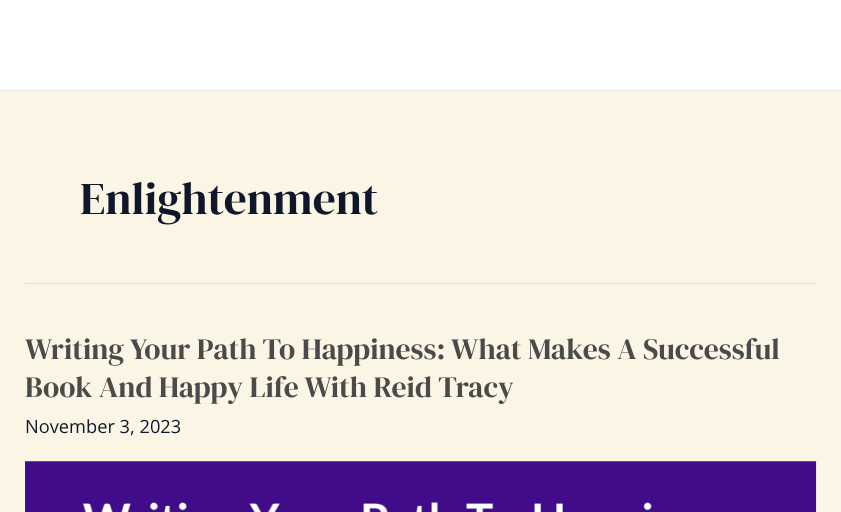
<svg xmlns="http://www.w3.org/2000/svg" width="841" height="512">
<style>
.a{font:45.5px DM Serif Display;fill:#0f172a}
.b{font:29.65px DM Serif Display;fill:#4a4a4a}
.c{font:18.25px Open Sans;fill:#0f172a}
</style>
<rect width="100%" height="100%" fill="#faf5e5"/>
<path fill="#fff" d="M0 0h841v90H0z"/>
<path fill="#eaeaea" d="M0 90h841v1H0z"/>
<path fill="#ddd" d="M25 283h791v1H25z"/>
<image href="1.png" x="25" y="461" width="792" height="51"/>
<text class="a" x="80" y="214">Enlightenment</text>
<text class="b" x="25" y="359">Writing Your Path To Happiness: What Makes A Successful</text>
<text class="b" x="25" y="397">Book And Happy Life With Reid Tracy</text>
<text class="c" x="25" y="433">November 3, 2023</text>
</svg>
